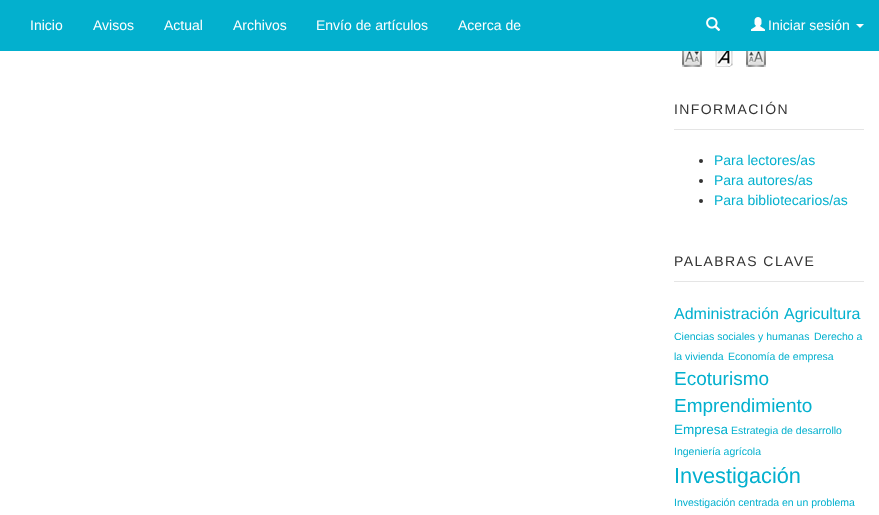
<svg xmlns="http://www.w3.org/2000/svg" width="879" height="515">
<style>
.a{font:14px Liberation Sans;fill:#fefefe}
.b{font:14px Liberation Sans;letter-spacing:1.4px;fill:#333}
.c{font:14px Liberation Sans;fill:#03b0ce}
.d{font:16px Liberation Sans;fill:#03b0ce}
.e{font:10.5px Liberation Sans;fill:#03b0ce}
.f{font:19px Liberation Sans;fill:#03b0ce}
.g{font:13.5px Liberation Sans;fill:#03b0ce}
.h{font:21.75px Liberation Sans;fill:#03b0ce}
</style>
<rect width="100%" height="100%" fill="#fff"/>
<path fill="#03b0ce" d="M0 0h879v51H0z"/>
<image href="1.png" x="706" y="17" width="15" height="14"/>
<image href="2.png" x="751" y="17" width="14" height="14"/>
<path fill="#fefefe" d="M856 24h8l-4 4z"/>
<image href="3.png" x="682" y="51" width="20" height="16"/>
<image href="4.png" x="715" y="51" width="18" height="16"/>
<image href="5.png" x="746" y="51" width="20" height="16"/>
<path fill="#e5e5e5" d="M674 129h190v1H674z"/>
<circle fill="#333" cx="701" cy="161" r="2"/>
<circle fill="#333" cx="701" cy="181" r="2"/>
<circle fill="#333" cx="701" cy="201" r="2"/>
<path fill="#e5e5e5" d="M674 281h190v1H674z"/>
<text class="a" x="30" y="30">Inicio</text>
<text class="a" x="93" y="30">Avisos</text>
<text class="a" x="164" y="30">Actual</text>
<text class="a" x="233" y="30">Archivos</text>
<text class="a" x="316" y="30">Envío de artículos</text>
<text class="a" x="458" y="30">Acerca de</text>
<text class="a" x="768" y="30">Iniciar sesión</text>
<text class="b" x="674" y="114">INFORMACIÓN</text>
<text class="c" x="714" y="165">Para lectores/as</text>
<text class="c" x="714" y="185">Para autores/as</text>
<text class="c" x="714" y="205">Para bibliotecarios/as</text>
<text class="b" x="674" y="266">PALABRAS CLAVE</text>
<text class="d" x="674" y="319">Administración</text>
<text class="d" x="784" y="319">Agricultura</text>
<text class="e" x="674" y="340">Ciencias sociales y humanas</text>
<text class="e" x="814" y="340">Derecho a</text>
<text class="e" x="674" y="360">la vivienda</text>
<text class="e" x="728" y="360">Economía de empresa</text>
<text class="f" x="674" y="385">Ecoturismo</text>
<text class="f" x="674" y="412">Emprendimiento</text>
<text class="g" x="674" y="434">Empresa</text>
<text class="e" x="731" y="434">Estrategia de desarrollo</text>
<text class="e" x="674" y="455">Ingeniería agrícola</text>
<text class="h" x="674" y="483">Investigación</text>
<text class="e" x="674" y="506">Investigación centrada en un problema</text>
</svg>
